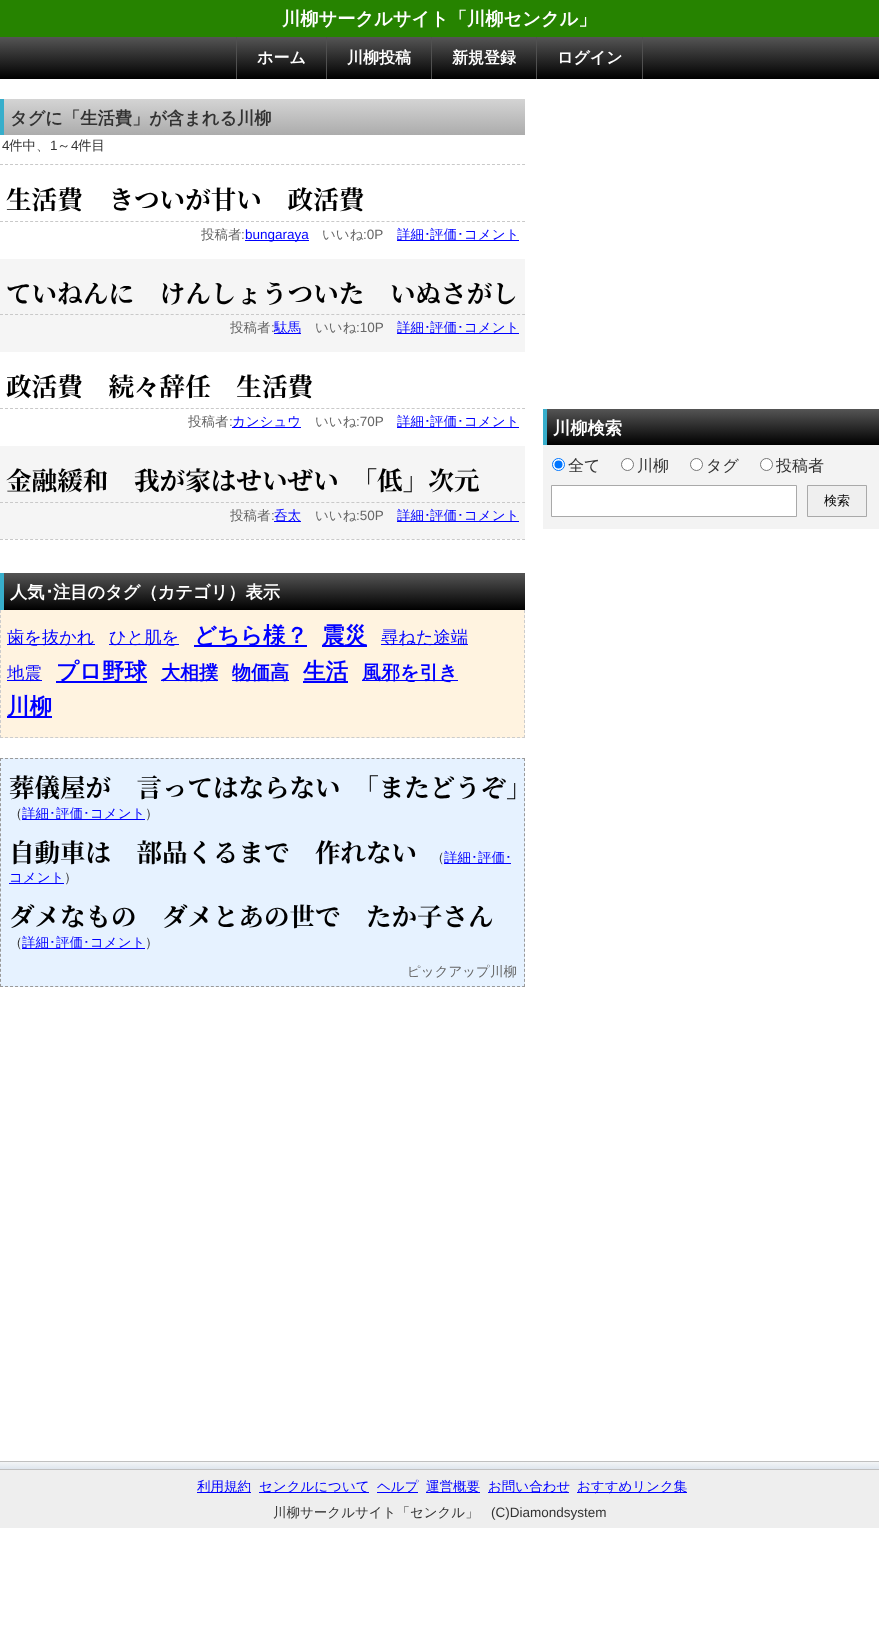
<svg xmlns="http://www.w3.org/2000/svg" width="879" height="1638">
<style>
.a{font:bold 18.25px WenQuanYi Zen Hei;fill:#fff}
.b{font:bold 16px WenQuanYi Zen Hei;fill:#fff}
.c{font:bold 17.25px WenQuanYi Zen Hei;fill:#333}
.d{font:13.5px Liberation Sans;fill:#333}
.e{font:500 13.5px WenQuanYi Zen Hei;fill:#333}
.f{font:bold 25.6px Noto Serif JP;fill:#000}
.g{font:500 13.5px WenQuanYi Zen Hei;fill:#666}
.h{font:13.5px Liberation Sans;fill:#666}
.i{font:13.5px Liberation Sans;fill:#00f}
.j{font:500 13.5px WenQuanYi Zen Hei;fill:#00f}
.k{font:13.5px IPAPGothic;fill:#00f}
.l{font:bold 17.25px WenQuanYi Zen Hei;fill:#fff}
.m{font:bold 17.25px IPAPGothic;fill:#fff}
.n{font:500 17.25px WenQuanYi Zen Hei;fill:#00f}
.o{font:bold 22.5px WenQuanYi Zen Hei;fill:#00f}
.p{font:bold 19px WenQuanYi Zen Hei;fill:#00f}
.q{font:bold 25.5px Noto Serif JP;fill:#000}
.r{font:500 16px WenQuanYi Zen Hei;fill:#333}
.s{font:500 13px WenQuanYi Zen Hei;fill:#000}
</style>
<defs>
<linearGradient id="g1" gradientUnits="userSpaceOnUse" x1="440" y1="37" x2="440" y2="79"><stop offset="0" stop-color="#555"/><stop offset="1" stop-color="#000"/><stop offset="1" stop-color="#535353"/></linearGradient>
<linearGradient id="g2" gradientUnits="userSpaceOnUse" x1="265" y1="135" x2="265" y2="99"><stop offset="0" stop-color="#acacac"/><stop offset="1" stop-color="#d4d4d4"/></linearGradient>
<linearGradient id="g3" gradientUnits="userSpaceOnUse" x1="265" y1="573" x2="265" y2="610"><stop offset="0" stop-color="#555"/><stop offset="1" stop-color="#000"/><stop offset="1" stop-color="#535353"/></linearGradient>
<linearGradient id="g4" gradientUnits="userSpaceOnUse" x1="713" y1="409" x2="713" y2="445"><stop offset="0" stop-color="#555"/><stop offset="1" stop-color="#000"/><stop offset="1" stop-color="#535353"/></linearGradient>
<linearGradient id="g5" gradientUnits="userSpaceOnUse" x1="440" y1="1462" x2="440" y2="1469"><stop offset="0" stop-color="#f3f5f6"/><stop offset="1" stop-color="#dfe6ee"/></linearGradient>
</defs>
<rect width="100%" height="100%" fill="#fff"/>
<path fill="#268300" d="M0 0h879v37H0z"/>
<path fill="url(#g1)" d="M0 37h879v42H0z"/>
<path fill="#505050" d="M326 37h1v42H326z"/>
<path fill="#505050" d="M236 37h1v42H236z"/>
<path fill="#505050" d="M431 37h1v42H431z"/>
<path fill="#505050" d="M536 37h1v42H536z"/>
<path fill="#505050" d="M642 37h1v42H642z"/>
<path fill="url(#g2)" d="M4 99h521v36H4z"/>
<path fill="#37aecb" d="M0 99h4v36H0z"/>
<path fill="none" stroke="#c9c9c9" stroke-dasharray="3 2.02" d="M0 164.5h525"/>
<path fill="none" stroke="#c9c9c9" stroke-dasharray="3 2.02" d="M0 221.5h525"/>
<path fill="#00f" d="M245 240h64v1H245z"/>
<path fill="#00f" d="M397 240h122v1H397z"/>
<path fill="#f5f5f5" d="M0 259h525v93H0z"/>
<path fill="none" stroke="#c9c9c9" stroke-dasharray="3 2.02" d="M0 314.5h525"/>
<path fill="#00f" d="M274 333h27v1H274z"/>
<path fill="#00f" d="M397 333h122v1H397z"/>
<path fill="none" stroke="#c9c9c9" stroke-dasharray="3 2.02" d="M0 408.5h525"/>
<path fill="#00f" d="M232 427h69v1H232z"/>
<path fill="#00f" d="M397 427h122v1H397z"/>
<path fill="#f5f5f5" d="M0 446h525v93H0z"/>
<path fill="none" stroke="#c9c9c9" stroke-dasharray="3 2.02" d="M0 502.5h525"/>
<path fill="#00f" d="M274 521h27v1H274z"/>
<path fill="#00f" d="M397 521h122v1H397z"/>
<path fill="none" stroke="#c9c9c9" stroke-dasharray="3 2.02" d="M0 539.5h525"/>
<path fill="url(#g3)" d="M4 573h521v37H4z"/>
<path fill="#37aecb" d="M0 573h4v37H0z"/>
<path fill="#fff3e0" d="M0 610h525v128H0z"/>
<path fill="none" stroke="#ccc" stroke-dasharray="3 2" d="M524.5 610v128"/>
<path fill="none" stroke="#ccc" stroke-dasharray="3 2.02" d="M0 737.5h525"/>
<path fill="none" stroke="#ccc" stroke-dasharray="3 2" d="M.5 610v128"/>
<path fill="#00f" d="M7 644h88v1H7z"/>
<path fill="#00f" d="M109 644h70v1H109z"/>
<path fill="#00f" d="M194 645h113v2H194z"/>
<path fill="#00f" d="M322 645h45v2H322z"/>
<path fill="#00f" d="M381 644h87v1H381z"/>
<path fill="#00f" d="M7 680h35v1H7z"/>
<path fill="#00f" d="M56 681h91v2H56z"/>
<path fill="#00f" d="M161 680h57v1H161z"/>
<path fill="#00f" d="M232 680h57v1H232z"/>
<path fill="#00f" d="M303 681h45v2H303z"/>
<path fill="#00f" d="M362 680h96v1H362z"/>
<path fill="#00f" d="M7 716h45v2H7z"/>
<path fill="#e6f2ff" d="M0 758h525v229H0z"/>
<path fill="none" stroke="#999" stroke-dasharray="3 2.02" d="M0 758.5h525"/>
<path fill="none" stroke="#999" stroke-dasharray="3 2.02" d="M524.5 758v229"/>
<path fill="none" stroke="#999" stroke-dasharray="3 2.02" d="M0 986.5h525"/>
<path fill="none" stroke="#999" stroke-dasharray="3 2.02" d="M.5 758v229"/>
<path fill="#00f" d="M22 819h123v1H22z"/>
<path fill="#00f" d="M444 863h67v1H444z"/>
<path fill="#00f" d="M9 883h55v1H9z"/>
<path fill="#00f" d="M22 948h123v1H22z"/>
<path fill="url(#g4)" d="M547 409h332v36H547z"/>
<path fill="#37aecb" d="M543 409h4v36H543z"/>
<path fill="#f3f3f3" d="M543 445h336v84H543z"/>
<circle fill="#fff" stroke="#0075ff" cx="558.5" cy="464.5" r="6"/>
<circle fill="#0075ff" cx="558.5" cy="464.5" r="4"/>
<circle fill="#fff" stroke="#767676" cx="627.5" cy="464.5" r="6"/>
<circle fill="#fff" stroke="#767676" cx="696.5" cy="464.5" r="6"/>
<circle fill="#fff" stroke="#767676" cx="766.5" cy="464.5" r="6"/>
<path fill="#fff" stroke="#a9a9a9" d="M551.5 485.5h245v31H551.5z"/>
<path fill="#efefef" stroke="#a9a9a9" d="M807.5 485.5h59v31H807.5z"/>
<path fill="url(#g5)" d="M0 1462h879v7H0z"/>
<path fill="#c0c0c0" d="M0 1461h879v1H0z"/>
<path fill="#eee" d="M0 1470h879v58H0z"/>
<path fill="#c0c0c0" d="M0 1469h879v1H0z"/>
<path fill="#00f" d="M197 1492h54v1H197z"/>
<path fill="#00f" d="M259 1492h110v1H259z"/>
<path fill="#00f" d="M377 1492h41v1H377z"/>
<path fill="#00f" d="M426 1492h54v1H426z"/>
<path fill="#00f" d="M488 1492h81v1H488z"/>
<path fill="#00f" d="M577 1492h110v1H577z"/>
<text class="a" x="282" y="25">川柳サークルサイト「川柳センクル」</text>
<text class="b" x="257" y="63">ホーム</text>
<text class="b" x="347" y="63">川柳投稿</text>
<text class="b" x="452" y="63">新規登録</text>
<text class="b" x="557" y="63">ログイン</text>
<text class="c" x="10" y="124">タグに「生活費」が含まれる川柳</text>
<text class="d" x="2" y="150">4</text>
<text class="e" x="9" y="150">件中、</text>
<text class="d" x="50" y="150">1</text>
<text class="e" x="57" y="150">～</text>
<text class="d" x="71" y="150">4</text>
<text class="e" x="78" y="150">件目</text>
<text class="f" x="6" y="209">生活費　きついが甘い　政活費</text>
<text class="g" x="201" y="239">投稿者</text>
<text class="h" x="241" y="239">:</text>
<text class="i" x="245" y="239">bungaraya</text>
<text class="g" x="322" y="239">いいね</text>
<text class="h" x="363" y="239">:0P</text>
<text class="j" x="397" y="239">詳細</text>
<text class="k" x="424" y="239">･</text>
<text class="j" x="430" y="239">評価</text>
<text class="k" x="457" y="239">･</text>
<text class="j" x="464" y="239">コメント</text>
<text class="f" x="6" y="303">ていねんに　けんしょうついた　いぬさがし</text>
<text class="g" x="230" y="332">投稿者</text>
<text class="h" x="271" y="332">:</text>
<text class="j" x="274" y="332">駄馬</text>
<text class="g" x="315" y="332">いいね</text>
<text class="h" x="356" y="332">:10P</text>
<text class="j" x="397" y="332">詳細</text>
<text class="k" x="424" y="332">･</text>
<text class="j" x="430" y="332">評価</text>
<text class="k" x="457" y="332">･</text>
<text class="j" x="464" y="332">コメント</text>
<text class="f" x="6" y="396">政活費　続々辞任　生活費</text>
<text class="g" x="188" y="426">投稿者</text>
<text class="h" x="229" y="426">:</text>
<text class="j" x="232" y="426">カンシュウ</text>
<text class="g" x="315" y="426">いいね</text>
<text class="h" x="356" y="426">:70P</text>
<text class="j" x="397" y="426">詳細</text>
<text class="k" x="424" y="426">･</text>
<text class="j" x="430" y="426">評価</text>
<text class="k" x="457" y="426">･</text>
<text class="j" x="464" y="426">コメント</text>
<text class="f" x="6" y="490">金融緩和　我が家はせいぜい　「低」次元</text>
<text class="g" x="230" y="520">投稿者</text>
<text class="h" x="271" y="520">:</text>
<text class="j" x="274" y="520">呑太</text>
<text class="g" x="315" y="520">いいね</text>
<text class="h" x="356" y="520">:50P</text>
<text class="j" x="397" y="520">詳細</text>
<text class="k" x="424" y="520">･</text>
<text class="j" x="430" y="520">評価</text>
<text class="k" x="457" y="520">･</text>
<text class="j" x="464" y="520">コメント</text>
<text class="l" x="10" y="598">人気</text>
<text class="m" x="45" y="598">･</text>
<text class="l" x="53" y="598">注目のタグ（カテゴリ）表示</text>
<text class="n" x="7" y="643">歯を抜かれ</text>
<text class="n" x="109" y="643">ひと肌を</text>
<text class="o" x="194" y="643">どちら様？</text>
<text class="o" x="322" y="643">震災</text>
<text class="n" x="381" y="643">尋ねた途端</text>
<text class="n" x="7" y="679">地震</text>
<text class="o" x="56" y="679">プロ野球</text>
<text class="p" x="161" y="679">大相撲</text>
<text class="p" x="232" y="679">物価高</text>
<text class="o" x="303" y="679">生活</text>
<text class="p" x="362" y="679">風邪を引き</text>
<text class="o" x="7" y="714">川柳</text>
<text class="q" x="9" y="797">葬儀屋が　言ってはならない　「またどうぞ」</text>
<text class="e" x="9" y="818">（</text>
<text class="j" x="22" y="818">詳細</text>
<text class="k" x="49" y="818">･</text>
<text class="j" x="56" y="818">評価</text>
<text class="k" x="83" y="818">･</text>
<text class="j" x="90" y="818">コメント</text>
<text class="e" x="145" y="818">）</text>
<text class="q" x="9" y="862">自動車は　部品くるまで　作れない</text>
<text class="e" x="431" y="862">（</text>
<text class="j" x="444" y="862">詳細</text>
<text class="k" x="471" y="862">･</text>
<text class="j" x="478" y="862">評価</text>
<text class="k" x="505" y="862">･</text>
<text class="j" x="9" y="882">コメント</text>
<text class="e" x="64" y="882">）</text>
<text class="q" x="9" y="926">ダメなもの　ダメとあの世で　たか子さん</text>
<text class="e" x="9" y="947">（</text>
<text class="j" x="22" y="947">詳細</text>
<text class="k" x="49" y="947">･</text>
<text class="j" x="56" y="947">評価</text>
<text class="k" x="83" y="947">･</text>
<text class="j" x="90" y="947">コメント</text>
<text class="e" x="145" y="947">）</text>
<text class="g" x="407" y="976">ピックアップ川柳</text>
<text class="l" x="553" y="434">川柳検索</text>
<text class="r" x="568" y="471">全て</text>
<text class="r" x="637" y="471">川柳</text>
<text class="r" x="706" y="471">タグ</text>
<text class="r" x="776" y="471">投稿者</text>
<text class="s" x="824" y="505">検索</text>
<text class="j" x="197" y="1491">利用規約</text>
<text class="j" x="259" y="1491">センクルについて</text>
<text class="j" x="377" y="1491">ヘルプ</text>
<text class="j" x="426" y="1491">運営概要</text>
<text class="j" x="488" y="1491">お問い合わせ</text>
<text class="j" x="577" y="1491">おすすめリンク集</text>
<text class="e" x="273" y="1517">川柳サークルサイト「センクル」</text>
<text class="d" x="491" y="1517">(C)Diamondsystem</text>
</svg>
